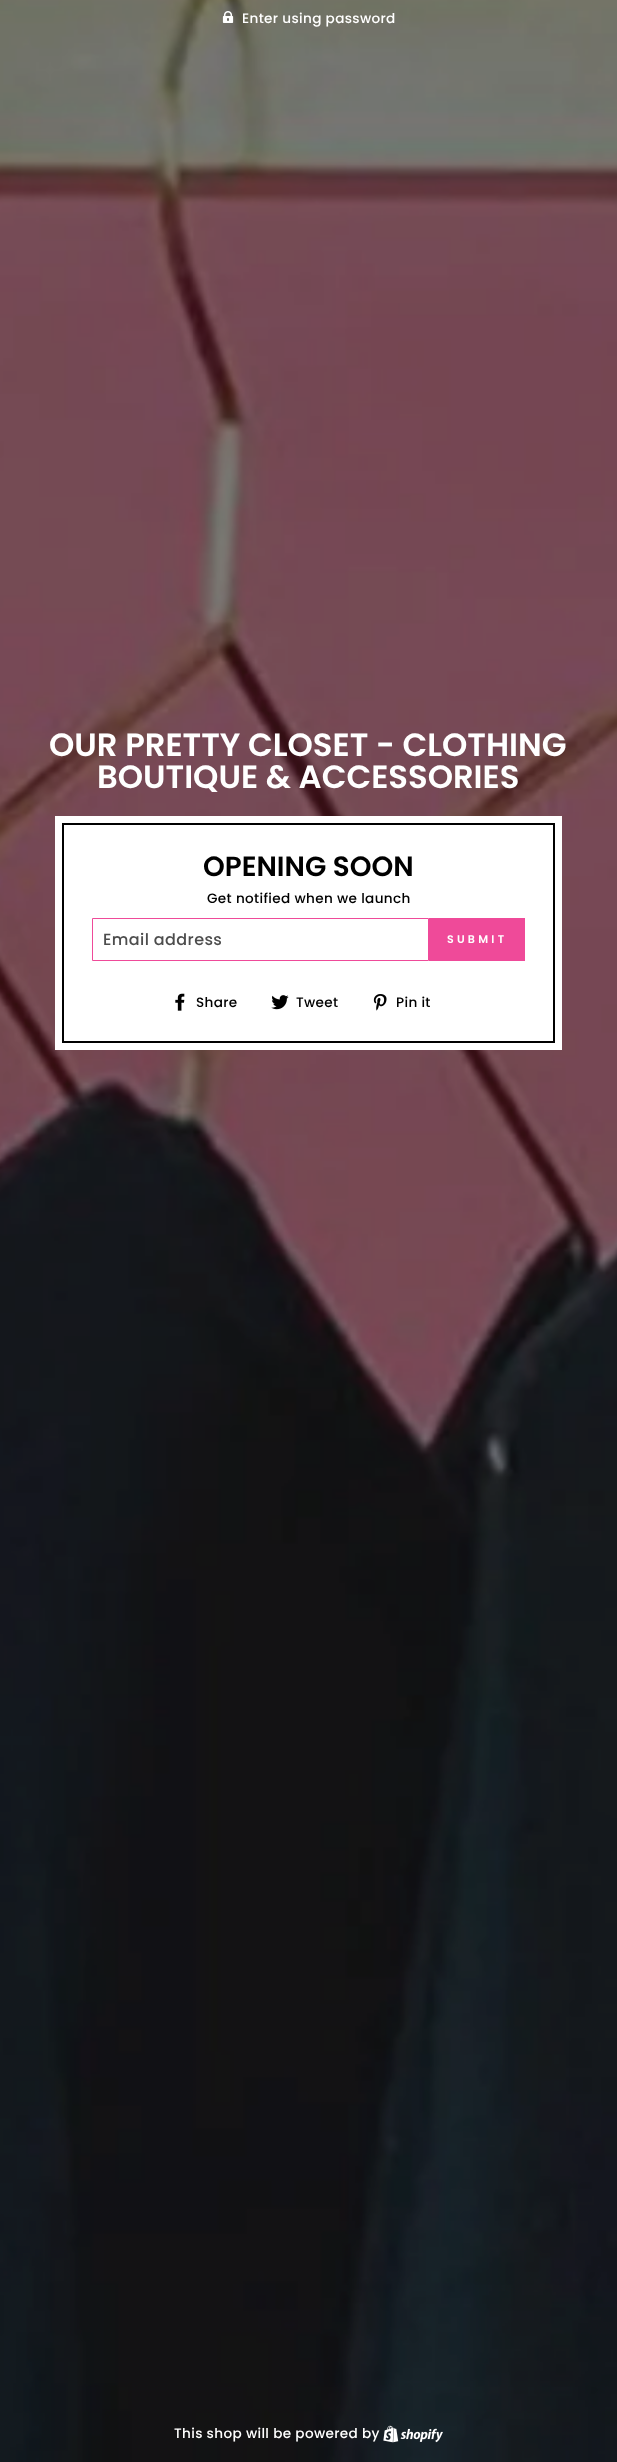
<svg xmlns="http://www.w3.org/2000/svg" width="617" height="2462">
<style>
.a{font:500 13.6px Poppins;letter-spacing:0.35px;fill:#fff}
.b{font:600 32.25px Poppins;fill:#fff}
.c{font:600 27.75px Poppins;fill:#000}
.d{font:500 13.6px Poppins;letter-spacing:0.35px;fill:#000}
.e{font:500 16px Poppins;letter-spacing:0.4px;fill:#4d4d4d}
.f{font:600 11px Poppins;letter-spacing:3.25px;fill:#fff}
</style>
<rect width="100%" height="100%" fill="#fff"/>
<image href="1.png" x="0" y="0" width="617" height="2462"/>
<image href="2.png" x="222" y="11" width="12" height="12"/>
<path fill="#fff" d="M55 816h507v234H55z"/>
<path fill="none" stroke="#000" stroke-width="2" d="M63 824h491v218H63z"/>
<path fill="none" stroke="#ef4a99" d="M92.5 918.5h336v42H92.5z"/>
<path fill="#ef4a99" d="M429 918h96v43H429z"/>
<image href="3.png" x="175" y="993" width="10" height="18"/>
<image href="4.png" x="271" y="995" width="18" height="15"/>
<image href="5.png" x="373" y="994" width="14" height="17"/>
<image href="6.png" x="383" y="2425" width="60" height="18"/>
<text class="a" x="242" y="23">Enter using password</text>
<text class="b" x="49" y="756">OUR PRETTY CLOSET - CLOTHING</text>
<text class="b" x="97" y="788">BOUTIQUE &amp; ACCESSORIES</text>
<text class="c" x="203" y="876">OPENING SOON</text>
<text class="d" x="207" y="903">Get notified when we launch</text>
<text class="e" x="103" y="945">Email address</text>
<text class="f" x="447" y="943">SUBMIT</text>
<text class="d" x="196" y="1007">Share</text>
<text class="d" x="296" y="1007">Tweet</text>
<text class="d" x="396" y="1007">Pin it</text>
<text class="a" x="174" y="2438">This shop will be powered by</text>
</svg>
